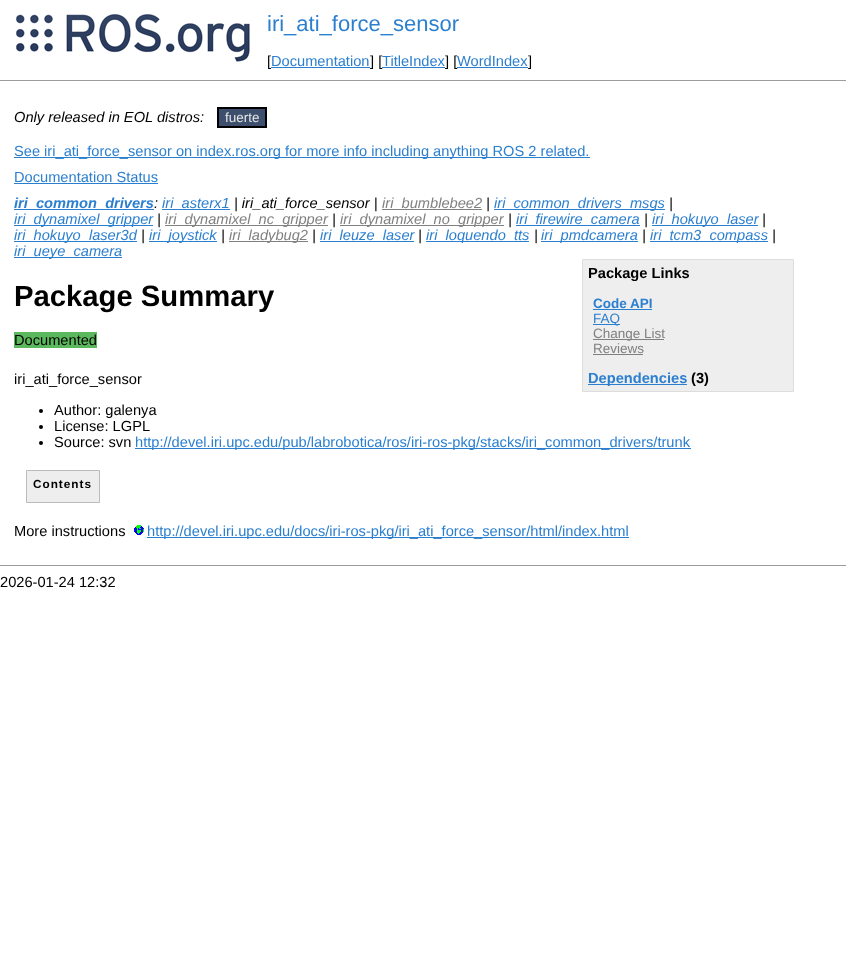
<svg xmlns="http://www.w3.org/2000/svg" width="846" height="967">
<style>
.a{font:22px Liberation Sans;fill:#2b7fcf}
.b{font:14.65px Liberation Sans;fill:#000}
.c{font:14.65px Liberation Sans;fill:#2b7fcf}
.d{font:italic 14.65px Liberation Sans;fill:#000}
.e{font:13.5px Liberation Sans;fill:#e6e6e6}
.f{font:italic bold 14.65px Liberation Sans;fill:#2b7fcf}
.g{font:italic 14.65px Liberation Sans;fill:#2b7fcf}
.h{font:italic 14.65px Liberation Sans;fill:#808080}
.i{font:bold 29.25px Liberation Sans;fill:#000}
.j{font:bold 14.65px Liberation Sans;fill:#000}
.k{font:bold 13.5px Liberation Sans;fill:#2b7fcf}
.l{font:13.5px Liberation Sans;fill:#2b7fcf}
.m{font:13.5px Liberation Sans;fill:#808080}
.n{font:bold 14.65px Liberation Sans;fill:#2b7fcf}
.o{font:bold 11.75px Liberation Sans;letter-spacing:1px;fill:#000}
</style>
<rect width="100%" height="100%" fill="#fff"/>
<image href="1.png" x="16" y="14" width="234" height="48"/>
<path fill="#9c9c9c" d="M0 80h846v1H0z"/>
<path fill="#3e4f6e" stroke="#000" stroke-width="2" d="M218 108h48v19H218z"/>
<path fill="#2b7fcf" d="M14 157h576v1H14z"/>
<path fill="#2b7fcf" d="M14 183h144v1H14z"/>
<path fill="#2b7fcf" d="M14 209h140v1H14z"/>
<path fill="#2b7fcf" d="M162 209h68v1H162z"/>
<path fill="#808080" d="M382 209h100v1H382z"/>
<path fill="#2b7fcf" d="M494 209h171v1H494z"/>
<path fill="#2b7fcf" d="M14 225h139v1H14z"/>
<path fill="#808080" d="M165 225h163v1H165z"/>
<path fill="#808080" d="M340 225h164v1H340z"/>
<path fill="#2b7fcf" d="M516 225h124v1H516z"/>
<path fill="#2b7fcf" d="M652 225h106v1H652z"/>
<path fill="#2b7fcf" d="M14 241h123v1H14z"/>
<path fill="#2b7fcf" d="M149 241h68v1H149z"/>
<path fill="#808080" d="M229 241h79v1H229z"/>
<path fill="#2b7fcf" d="M320 241h94v1H320z"/>
<path fill="#2b7fcf" d="M426 241h103v1H426z"/>
<path fill="#2b7fcf" d="M541 241h97v1H541z"/>
<path fill="#2b7fcf" d="M650 241h118v1H650z"/>
<path fill="#2b7fcf" d="M14 257h108v1H14z"/>
<path fill="#eee" stroke="#ddd" d="M582.5 259.5h211v132H582.5z"/>
<path fill="#2b7fcf" d="M593 309h59v1H593z"/>
<path fill="#2b7fcf" d="M593 324h27v1H593z"/>
<path fill="#808080" d="M593 339h71v1H593z"/>
<path fill="#808080" d="M593 354h50v1H593z"/>
<path fill="#2b7fcf" d="M588 384h99v1H588z"/>
<path fill="#5cb85c" d="M14 332h83v16H14z"/>
<circle fill="#000" cx="41" cy="411" r="2"/>
<circle fill="#000" cx="41" cy="427" r="2"/>
<circle fill="#000" cx="41" cy="443" r="2"/>
<path fill="#2b7fcf" d="M135 448h556v1H135z"/>
<path fill="#eee" stroke="#bbb" d="M26.5 470.5h73v32H26.5z"/>
<image href="2.png" x="134" y="525" width="10" height="10"/>
<path fill="#2b7fcf" d="M147 537h482v1H147z"/>
<path fill="#9c9c9c" d="M0 565h846v1H0z"/>
<text class="a" x="267" y="31">iri_ati_force_sensor</text>
<text class="b" x="267" y="66">[</text>
<text class="c" x="271" y="66">Documentation</text>
<path fill="#2b7fcf" d="M271 67h99v1H271z"/>
<text class="b" x="370" y="66">] [</text>
<text class="c" x="382" y="66">TitleIndex</text>
<path fill="#2b7fcf" d="M382 67h63v1H382z"/>
<text class="b" x="445" y="66">] [</text>
<text class="c" x="457" y="66">WordIndex</text>
<path fill="#2b7fcf" d="M457 67h71v1H457z"/>
<text class="b" x="528" y="66">]</text>
<text class="d" x="14" y="122">Only released in EOL distros:</text>
<text class="e" x="225" y="122">fuerte</text>
<text class="c" x="14" y="156">See iri_ati_force_sensor on index.ros.org for more info including anything ROS 2 related.</text>
<text class="c" x="14" y="182">Documentation Status</text>
<text class="f" x="14" y="208">iri_common_drivers</text>
<text class="d" x="154" y="208">:</text>
<text class="g" x="162" y="208">iri_asterx1</text>
<text class="d" x="234" y="208">| iri_ati_force_sensor |</text>
<text class="h" x="382" y="208">iri_bumblebee2</text>
<text class="d" x="486" y="208">|</text>
<text class="g" x="494" y="208">iri_common_drivers_msgs</text>
<text class="d" x="669" y="208">|</text>
<text class="g" x="14" y="224">iri_dynamixel_gripper</text>
<text class="d" x="157" y="224">|</text>
<text class="h" x="165" y="224">iri_dynamixel_nc_gripper</text>
<text class="d" x="332" y="224">|</text>
<text class="h" x="340" y="224">iri_dynamixel_no_gripper</text>
<text class="d" x="508" y="224">|</text>
<text class="g" x="516" y="224">iri_firewire_camera</text>
<text class="d" x="644" y="224">|</text>
<text class="g" x="652" y="224">iri_hokuyo_laser</text>
<text class="d" x="762" y="224">|</text>
<text class="g" x="14" y="240">iri_hokuyo_laser3d</text>
<text class="d" x="141" y="240">|</text>
<text class="g" x="149" y="240">iri_joystick</text>
<text class="d" x="221" y="240">|</text>
<text class="h" x="229" y="240">iri_ladybug2</text>
<text class="d" x="312" y="240">|</text>
<text class="g" x="320" y="240">iri_leuze_laser</text>
<text class="d" x="418" y="240">|</text>
<text class="g" x="426" y="240">iri_loquendo_tts</text>
<text class="d" x="534" y="240">|</text>
<text class="g" x="541" y="240">iri_pmdcamera</text>
<text class="d" x="642" y="240">|</text>
<text class="g" x="650" y="240">iri_tcm3_compass</text>
<text class="d" x="772" y="240">|</text>
<text class="g" x="14" y="256">iri_ueye_camera</text>
<text class="i" x="14" y="306">Package Summary</text>
<text class="j" x="588" y="278">Package Links</text>
<text class="k" x="593" y="308">Code API</text>
<text class="l" x="593" y="323">FAQ</text>
<text class="m" x="593" y="338">Change List</text>
<text class="m" x="593" y="353">Reviews</text>
<text class="n" x="588" y="383">Dependencies</text>
<text class="j" x="691" y="383">(3)</text>
<text class="b" x="14" y="345">Documented</text>
<text class="b" x="14" y="384">iri_ati_force_sensor</text>
<text class="b" x="54" y="415">Author: galenya</text>
<text class="b" x="54" y="431">License: LGPL</text>
<text class="b" x="54" y="447">Source: svn</text>
<text class="c" x="135" y="447">http://devel.iri.upc.edu/pub/labrobotica/ros/iri-ros-pkg/stacks/iri_common_drivers/trunk</text>
<text class="o" x="33" y="488">Contents</text>
<text class="b" x="14" y="536">More instructions</text>
<text class="c" x="147" y="536">http://devel.iri.upc.edu/docs/iri-ros-pkg/iri_ati_force_sensor/html/index.html</text>
<text class="b" x="0" y="587">2026-01-24 12:32</text>
</svg>
